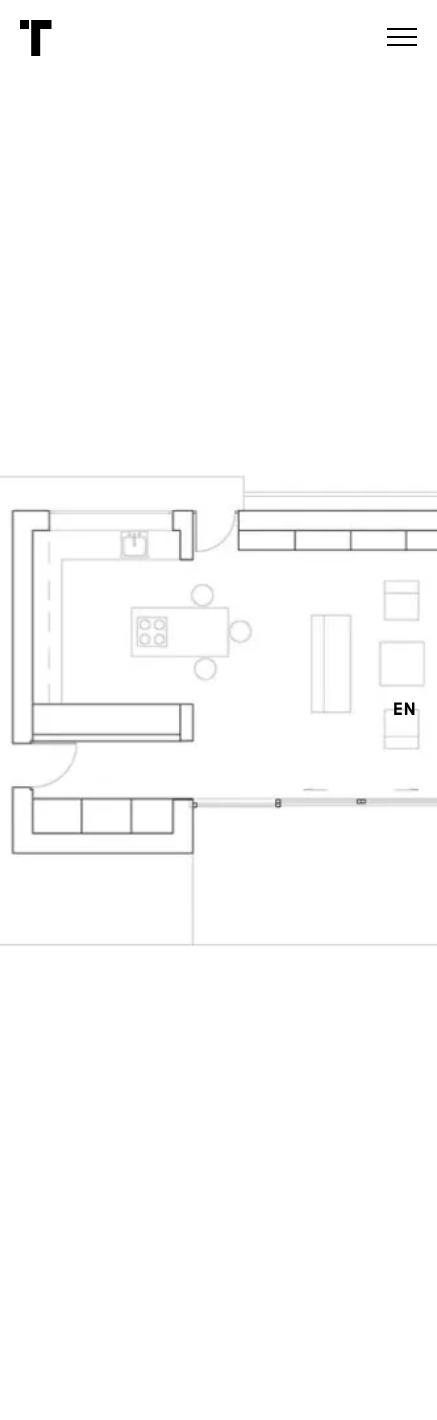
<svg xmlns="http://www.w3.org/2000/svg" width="437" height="1420">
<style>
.a{font:bold 18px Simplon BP;letter-spacing:1px;fill:#000}
</style>
<rect width="100%" height="100%" fill="#fff"/>
<image href="1.png" x="0" y="475" width="437" height="472"/>
<image href="2.png" x="20" y="20" width="32" height="36"/>
<path fill="#000" d="M387 28h30v2H387z"/>
<path fill="#000" d="M387 36h30v2H387z"/>
<path fill="#000" d="M387 44h30v2H387z"/>
<text class="a" x="393" y="715">EN</text>
</svg>
